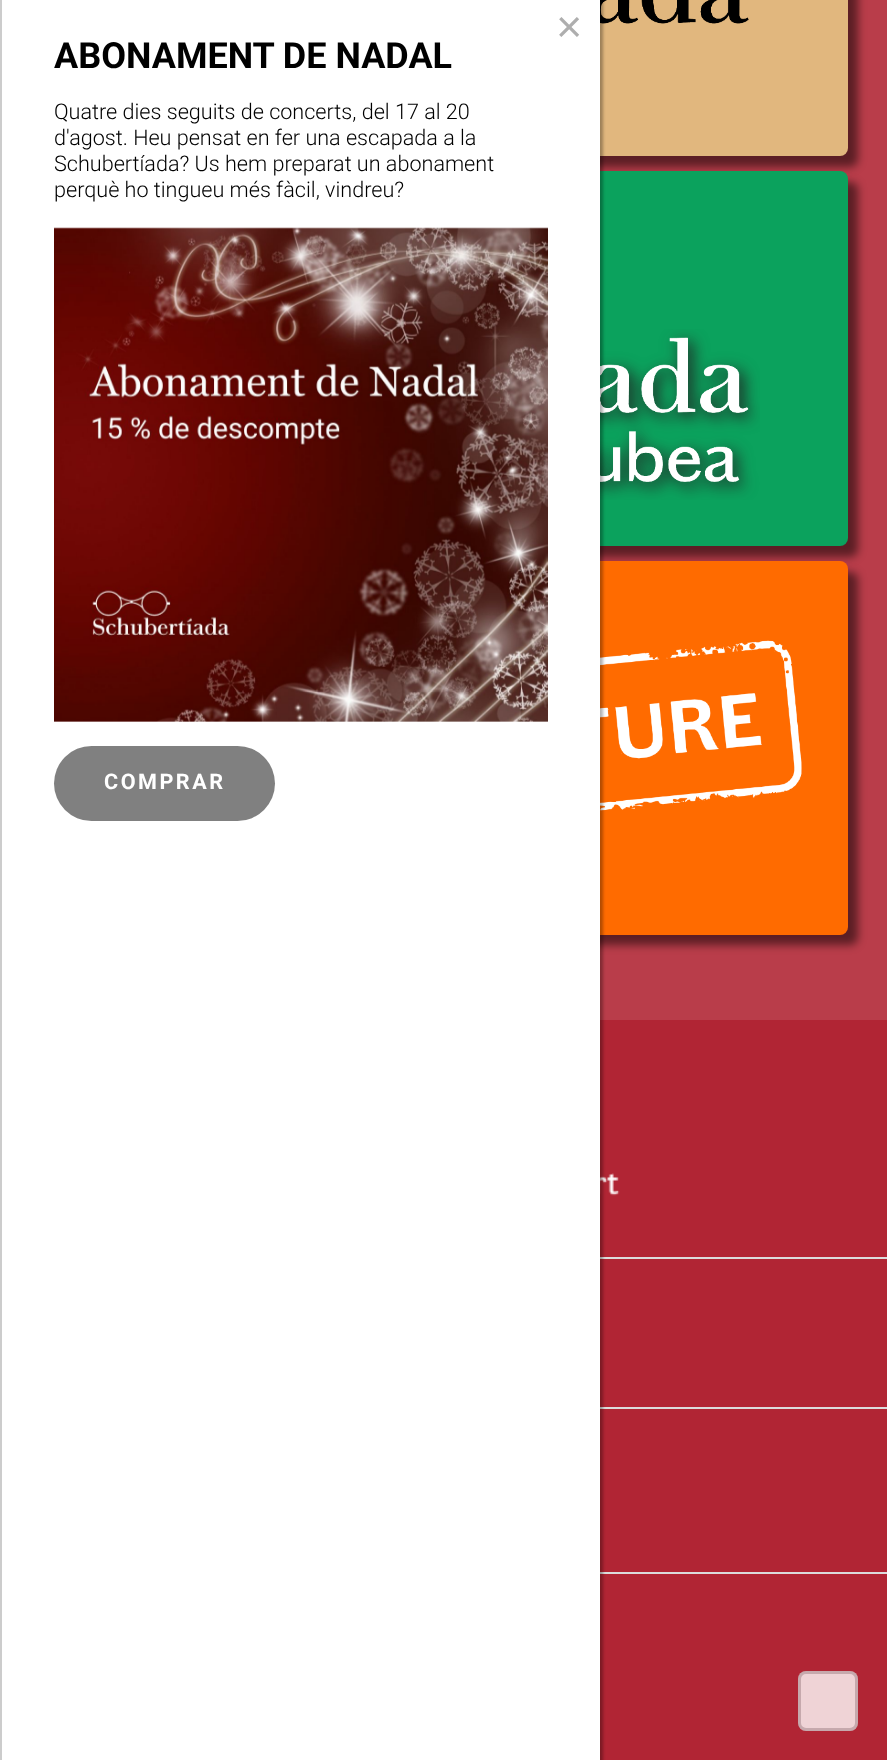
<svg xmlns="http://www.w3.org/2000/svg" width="887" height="1760">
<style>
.a{font:45px Liberation Sans;fill:#aeaeae}
.b{font:bold 36px Roboto;fill:#000}
.c{font:300 21.6px Roboto;fill:#000}
.d{font:bold 21.6px Roboto;letter-spacing:2.5px;fill:#fff}
</style>
<rect width="100%" height="100%" fill="#b93d4a"/>
<rect fill="#00000080" filter="blur(4px)" x="51" y="-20" width="807" height="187" rx="8"/>
<rect fill="#e1b77e" x="41" y="-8" width="807" height="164" rx="8"/>
<image href="1.png" x="600" y="0" width="149" height="24"/>
<rect fill="#00000080" filter="blur(4px)" x="51" y="182" width="807" height="375" rx="8"/>
<rect fill="#0ba25d" x="41" y="171" width="807" height="375" rx="8"/>
<image href="2.png" x="600" y="329" width="160" height="171"/>
<rect fill="#00000080" filter="blur(4px)" x="51" y="572" width="807" height="373" rx="8"/>
<rect fill="#ff6b00" x="41" y="561" width="807" height="374" rx="8"/>
<image href="3.png" x="600" y="640" width="202" height="171"/>
<path fill="#b12534" d="M600 1020h287v740H600z"/>
<image href="4.png" x="600" y="1173" width="20" height="23"/>
<path fill="#dcdcdc" d="M600 1257h287v2H600z"/>
<path fill="#dcdcdc" d="M600 1407h287v2H600z"/>
<path fill="#dcdcdc" d="M600 1572h287v2H600z"/>
<path fill="#0000014d" filter="blur(1.5px)" d="M-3 -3h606v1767H-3z"/>
<path fill="#fff" d="M2 0h598v1760H2z"/>
<path fill="#ccc" d="M0 0h2v1760H0z"/>
<image href="5.png" x="54" y="227" width="494" height="495"/>
<rect fill="#808080" x="54" y="746" width="221" height="75" rx="37.5"/>
<rect fill="#efd3d6" x="798" y="1671" width="60" height="60" rx="8"/>
<rect fill="none" stroke="#23070a33" stroke-width="3" x="799.5" y="1672.5" width="57" height="57" rx="6.5"/>
<text class="a" x="556" y="42">×</text>
<text class="b" x="54" y="68">ABONAMENT DE NADAL</text>
<text class="c" x="54" y="119">Quatre dies seguits de concerts, del 17 al 20</text>
<text class="c" x="54" y="145">d'agost. Heu pensat en fer una escapada a la</text>
<text class="c" x="54" y="171">Schubertíada? Us hem preparat un abonament</text>
<text class="c" x="54" y="197">perquè ho tingueu més fàcil, vindreu?</text>
<text class="d" x="104" y="789">COMPRAR</text>
</svg>
